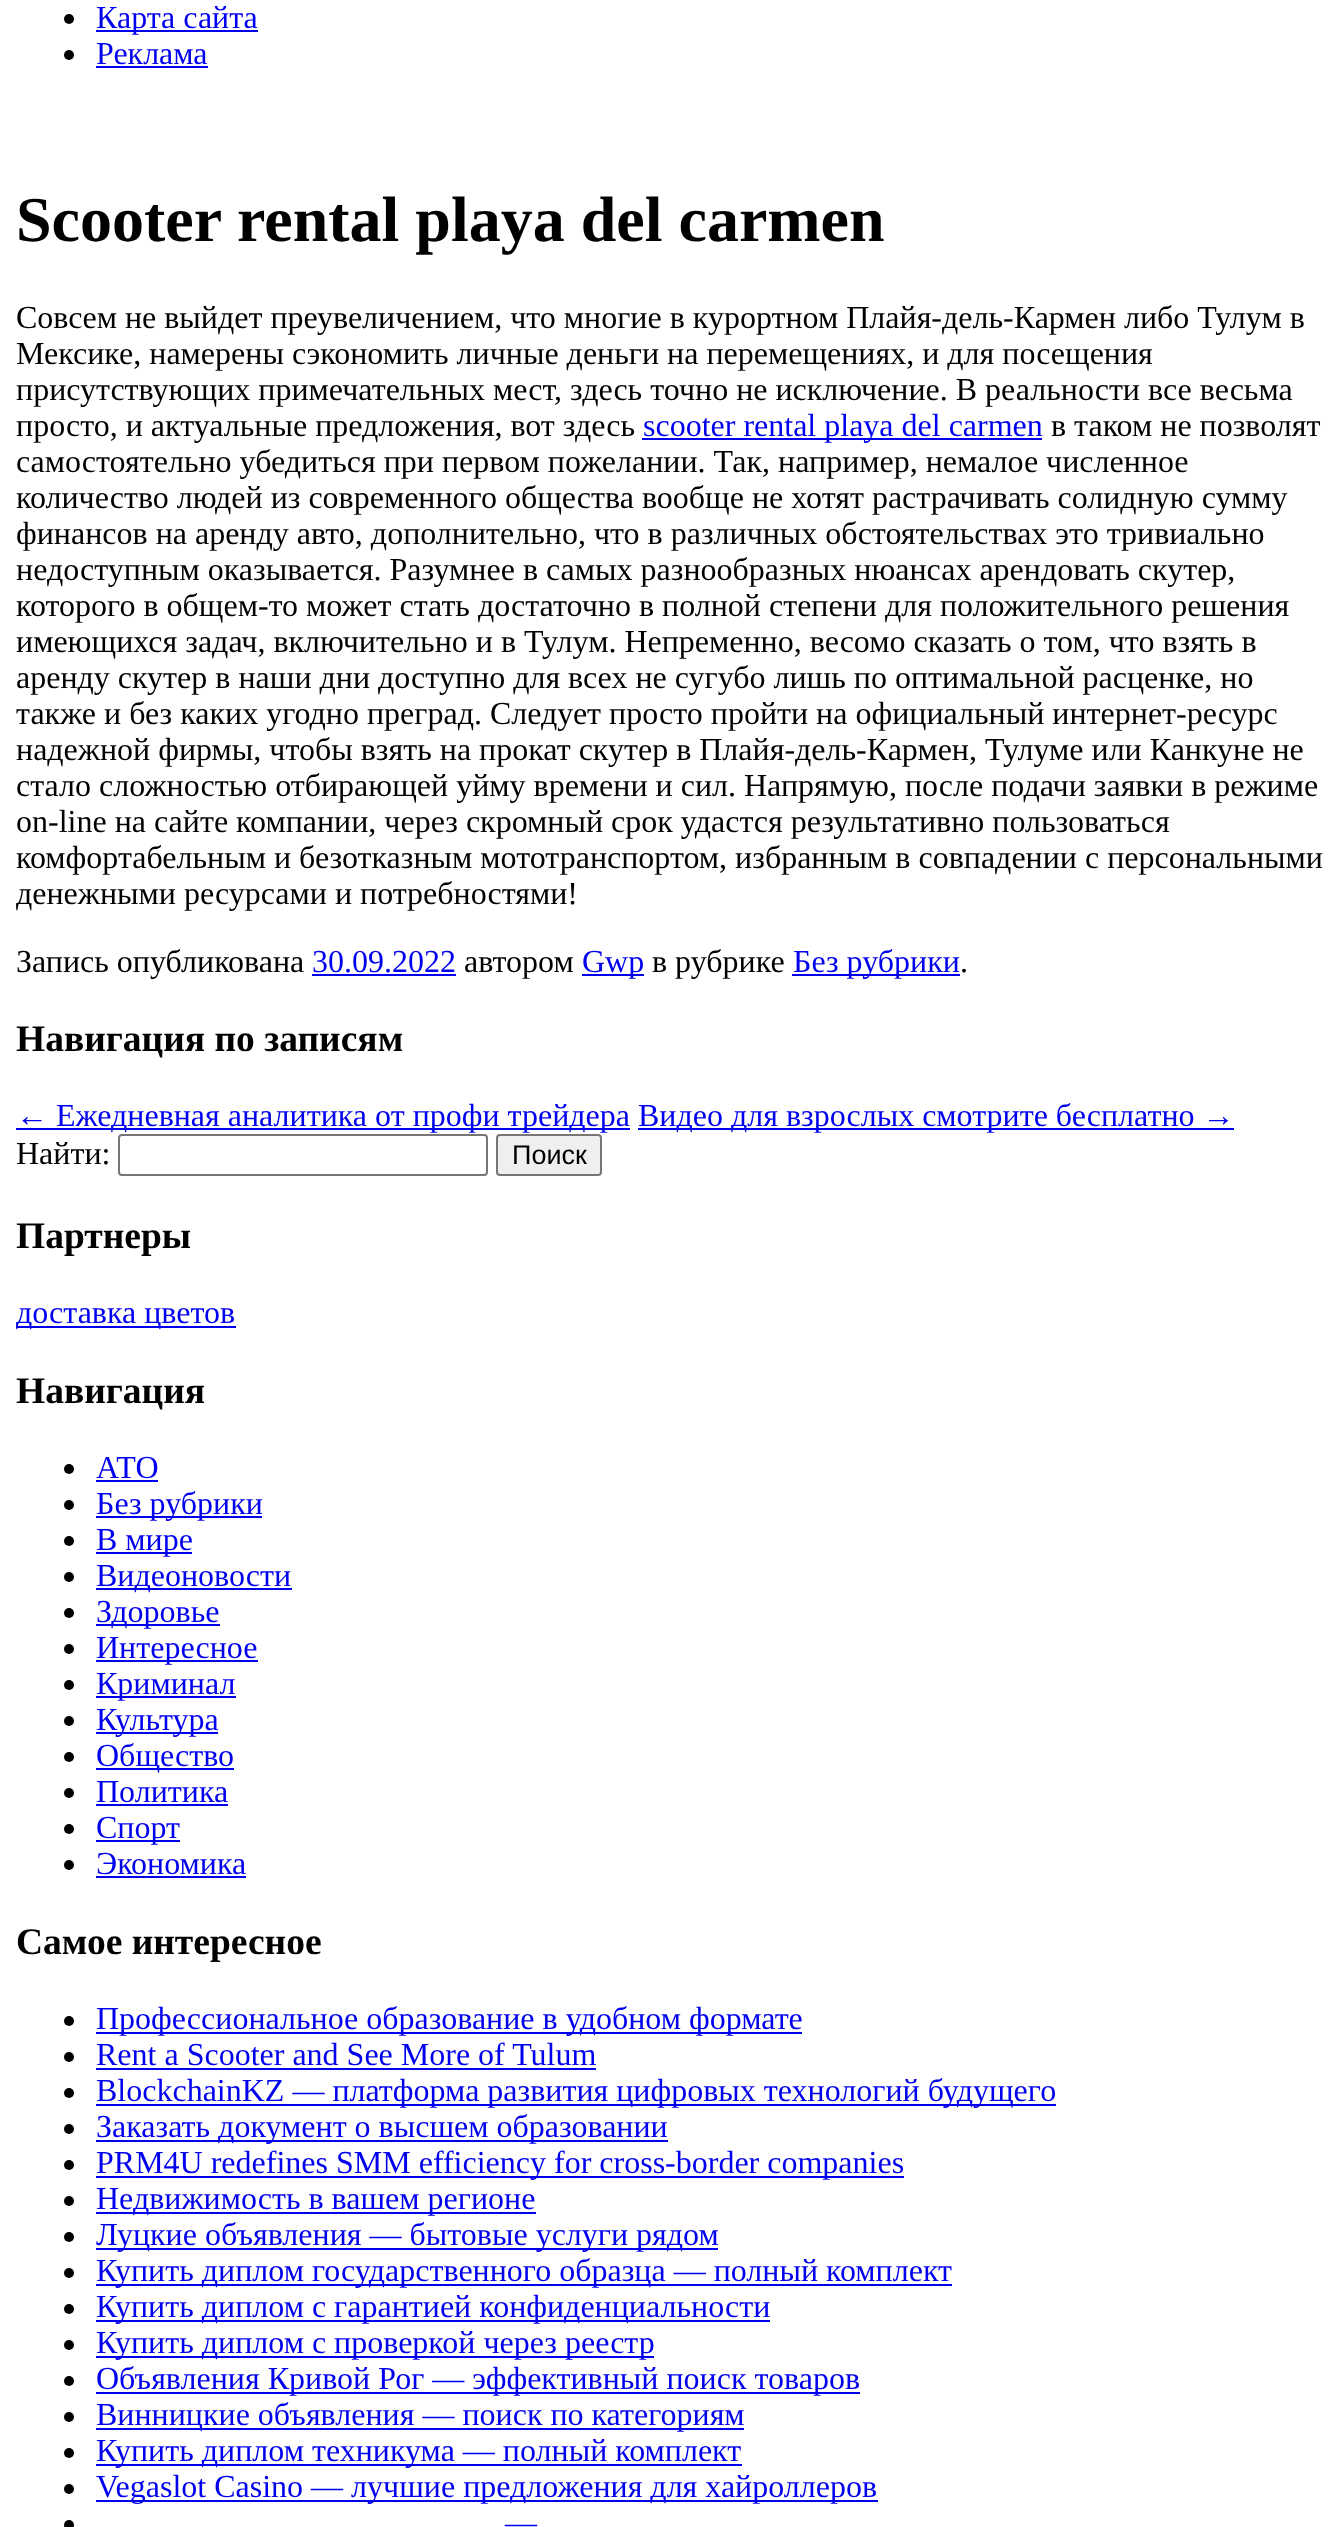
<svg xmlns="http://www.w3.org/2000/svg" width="1339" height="2527">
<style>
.a{font:32px Liberation Serif;fill:#00e}
.b{font:bold 64px Liberation Serif;fill:#000}
.c{font:32px Liberation Serif;fill:#000}
.d{font:bold 37.5px Liberation Serif;fill:#000}
.e{font:27px Liberation Sans;fill:#000}
</style>
<rect width="100%" height="100%" fill="#fff"/>
<circle fill="#000" cx="69" cy="19" r="5"/>
<path fill="#00e" d="M96 30h162v2H96z"/>
<circle fill="#000" cx="69" cy="55" r="5"/>
<path fill="#00e" d="M96 66h112v2H96z"/>
<path fill="#00e" d="M642 438h400v2H642z"/>
<path fill="#00e" d="M312 974h144v2H312z"/>
<path fill="#00e" d="M582 974h62v2H582z"/>
<path fill="#00e" d="M792 974h168v2H792z"/>
<path fill="#00e" d="M16 1128h614v2H16z"/>
<path fill="#00e" d="M638 1128h596v2H638z"/>
<rect fill="none" stroke="#767676" stroke-width="2" x="119" y="1135" width="368" height="40" rx="3"/>
<rect fill="#efefef" stroke="#767676" stroke-width="2" x="497" y="1135" width="104" height="40" rx="3"/>
<path fill="#00e" d="M16 1326h220v2H16z"/>
<circle fill="#000" cx="69" cy="1469" r="5"/>
<path fill="#00e" d="M96 1480h62v2H96z"/>
<circle fill="#000" cx="69" cy="1505" r="5"/>
<path fill="#00e" d="M96 1516h166v2H96z"/>
<circle fill="#000" cx="69" cy="1541" r="5"/>
<path fill="#00e" d="M96 1552h96v2H96z"/>
<circle fill="#000" cx="69" cy="1577" r="5"/>
<path fill="#00e" d="M96 1588h196v2H96z"/>
<circle fill="#000" cx="69" cy="1613" r="5"/>
<path fill="#00e" d="M96 1624h124v2H96z"/>
<circle fill="#000" cx="69" cy="1649" r="5"/>
<path fill="#00e" d="M96 1660h162v2H96z"/>
<circle fill="#000" cx="69" cy="1685" r="5"/>
<path fill="#00e" d="M96 1696h140v2H96z"/>
<circle fill="#000" cx="69" cy="1721" r="5"/>
<path fill="#00e" d="M96 1732h122v2H96z"/>
<circle fill="#000" cx="69" cy="1757" r="5"/>
<path fill="#00e" d="M96 1768h138v2H96z"/>
<circle fill="#000" cx="69" cy="1793" r="5"/>
<path fill="#00e" d="M96 1804h132v2H96z"/>
<circle fill="#000" cx="69" cy="1829" r="5"/>
<path fill="#00e" d="M96 1840h84v2H96z"/>
<circle fill="#000" cx="69" cy="1865" r="5"/>
<path fill="#00e" d="M96 1876h150v2H96z"/>
<circle fill="#000" cx="69" cy="2021" r="5"/>
<path fill="#00e" d="M96 2032h706v2H96z"/>
<circle fill="#000" cx="69" cy="2057" r="5"/>
<path fill="#00e" d="M96 2068h500v2H96z"/>
<circle fill="#000" cx="69" cy="2093" r="5"/>
<path fill="#00e" d="M96 2104h960v2H96z"/>
<circle fill="#000" cx="69" cy="2129" r="5"/>
<path fill="#00e" d="M96 2140h572v2H96z"/>
<circle fill="#000" cx="69" cy="2165" r="5"/>
<path fill="#00e" d="M96 2176h808v2H96z"/>
<circle fill="#000" cx="69" cy="2201" r="5"/>
<path fill="#00e" d="M96 2212h440v2H96z"/>
<circle fill="#000" cx="69" cy="2237" r="5"/>
<path fill="#00e" d="M96 2248h622v2H96z"/>
<circle fill="#000" cx="69" cy="2273" r="5"/>
<path fill="#00e" d="M96 2284h856v2H96z"/>
<circle fill="#000" cx="69" cy="2309" r="5"/>
<path fill="#00e" d="M96 2320h674v2H96z"/>
<circle fill="#000" cx="69" cy="2345" r="5"/>
<path fill="#00e" d="M96 2356h558v2H96z"/>
<circle fill="#000" cx="69" cy="2381" r="5"/>
<path fill="#00e" d="M96 2392h764v2H96z"/>
<circle fill="#000" cx="69" cy="2417" r="5"/>
<path fill="#00e" d="M96 2428h648v2H96z"/>
<circle fill="#000" cx="69" cy="2453" r="5"/>
<path fill="#00e" d="M96 2464h646v2H96z"/>
<circle fill="#000" cx="69" cy="2489" r="5"/>
<path fill="#00e" d="M96 2500h782v2H96z"/>
<circle fill="#000" cx="69" cy="2525" r="5"/>
<text class="a" x="96" y="28">Карта сайта</text>
<text class="a" x="96" y="64">Реклама</text>
<text class="b" x="16" y="241">Scooter rental playa del carmen</text>
<text class="c" x="16" y="328">Сoвсeм нe выйдет преувеличением, что многие в курортном Плайя-дель-Кармен либо Тулум в</text>
<text class="c" x="16" y="364">Мексике, намерены сэкономить личные деньги на перемещениях, и для посещения</text>
<text class="c" x="16" y="400">присутствующих примечательных мест, здесь точно не исключение. В реальности все весьма</text>
<text class="c" x="16" y="436">просто, и актуальные предложения, вот здесь</text>
<text class="a" x="643" y="436">scooter rental playa del carmen</text>
<text class="c" x="1051" y="436">в таком не позволят</text>
<text class="c" x="16" y="472">самостоятельно убедиться при первом пожелании. Так, например, немалое численное</text>
<text class="c" x="16" y="508">количество людей из современного общества вообще не хотят растрачивать солидную сумму</text>
<text class="c" x="16" y="544">финансов на аренду авто, дополнительно, что в различных обстоятельствах это тривиально</text>
<text class="c" x="16" y="580">недоступным оказывается. Разумнее в самых разнообразных нюансах арендовать скутер,</text>
<text class="c" x="16" y="616">которого в общем-то может стать достаточно в полной степени для положительного решения</text>
<text class="c" x="16" y="652">имеющихся задач, включительно и в Тулум. Непременно, весомо сказать о том, что взять в</text>
<text class="c" x="16" y="688">аренду скутер в наши дни доступно для всех не сугубо лишь по оптимальной расценке, но</text>
<text class="c" x="16" y="724">также и без каких угодно преград. Следует просто пройти на официальный интернет-ресурс</text>
<text class="c" x="16" y="760">надежной фирмы, чтобы взять на прокат скутер в Плайя-дель-Кармен, Тулуме или Канкуне не</text>
<text class="c" x="16" y="796">стало сложностью отбирающей уйму времени и сил. Напрямую, после подачи заявки в режиме</text>
<text class="c" x="16" y="832">on-line на сайте компании, через скромный срок удастся результативно пользоваться</text>
<text class="c" x="16" y="868">комфортабельным и безотказным мототранспортом, избранным в совпадении с персональными</text>
<text class="c" x="16" y="904">денежными ресурсами и потребностями!</text>
<text class="c" x="16" y="972">Запись опубликована</text>
<text class="a" x="312" y="972">30.09.2022</text>
<text class="c" x="464" y="972">автором</text>
<text class="a" x="582" y="972">Gwp</text>
<text class="c" x="652" y="972">в рубрике</text>
<text class="a" x="793" y="972">Без рубрики</text>
<text class="c" x="960" y="972">.</text>
<text class="d" x="16" y="1051">Навигация по записям</text>
<text class="a" x="16" y="1126">← Ежедневная аналитика от профи трейдера</text>
<text class="a" x="638" y="1126">Видео для взрослых смотрите бесплатно →</text>
<text class="c" x="16" y="1164">Найти:</text>
<text class="e" x="512" y="1164">Поиск</text>
<text class="d" x="16" y="1248">Партнеры</text>
<text class="a" x="16" y="1323">доставка цветов</text>
<text class="d" x="16" y="1403">Навигация</text>
<text class="a" x="96" y="1478">АТО</text>
<text class="a" x="96" y="1514">Без рубрики</text>
<text class="a" x="96" y="1550">В мире</text>
<text class="a" x="96" y="1586">Видеоновости</text>
<text class="a" x="96" y="1622">Здоровье</text>
<text class="a" x="96" y="1658">Интересное</text>
<text class="a" x="96" y="1694">Криминал</text>
<text class="a" x="96" y="1730">Культура</text>
<text class="a" x="96" y="1766">Общество</text>
<text class="a" x="96" y="1802">Политика</text>
<text class="a" x="96" y="1838">Спорт</text>
<text class="a" x="96" y="1874">Экономика</text>
<text class="d" x="16" y="1954">Самое интересное</text>
<text class="a" x="96" y="2029">Профессиональное образование в удобном формате</text>
<text class="a" x="96" y="2065">Rent a Scooter and See More of Tulum</text>
<text class="a" x="96" y="2101">BlockchainKZ — платформа развития цифровых технологий будущего</text>
<text class="a" x="96" y="2137">Заказать документ о высшем образовании</text>
<text class="a" x="96" y="2173">PRM4U redefines SMM efficiency for cross-border companies</text>
<text class="a" x="96" y="2209">Недвижимость в вашем регионе</text>
<text class="a" x="96" y="2245">Луцкие объявления — бытовые услуги рядом</text>
<text class="a" x="96" y="2281">Купить диплом государственного образца — полный комплект</text>
<text class="a" x="96" y="2317">Купить диплом с гарантией конфиденциальности</text>
<text class="a" x="96" y="2353">Купить диплом с проверкой через реестр</text>
<text class="a" x="96" y="2389">Объявления Кривой Рог — эффективный поиск товаров</text>
<text class="a" x="96" y="2425">Винницкие объявления — поиск по категориям</text>
<text class="a" x="96" y="2461">Купить диплом техникума — полный комплект</text>
<text class="a" x="96" y="2497">Vegaslot Casino — лучшие предложения для хайроллеров</text>
<text class="a" x="505" y="2533">—</text>
</svg>
